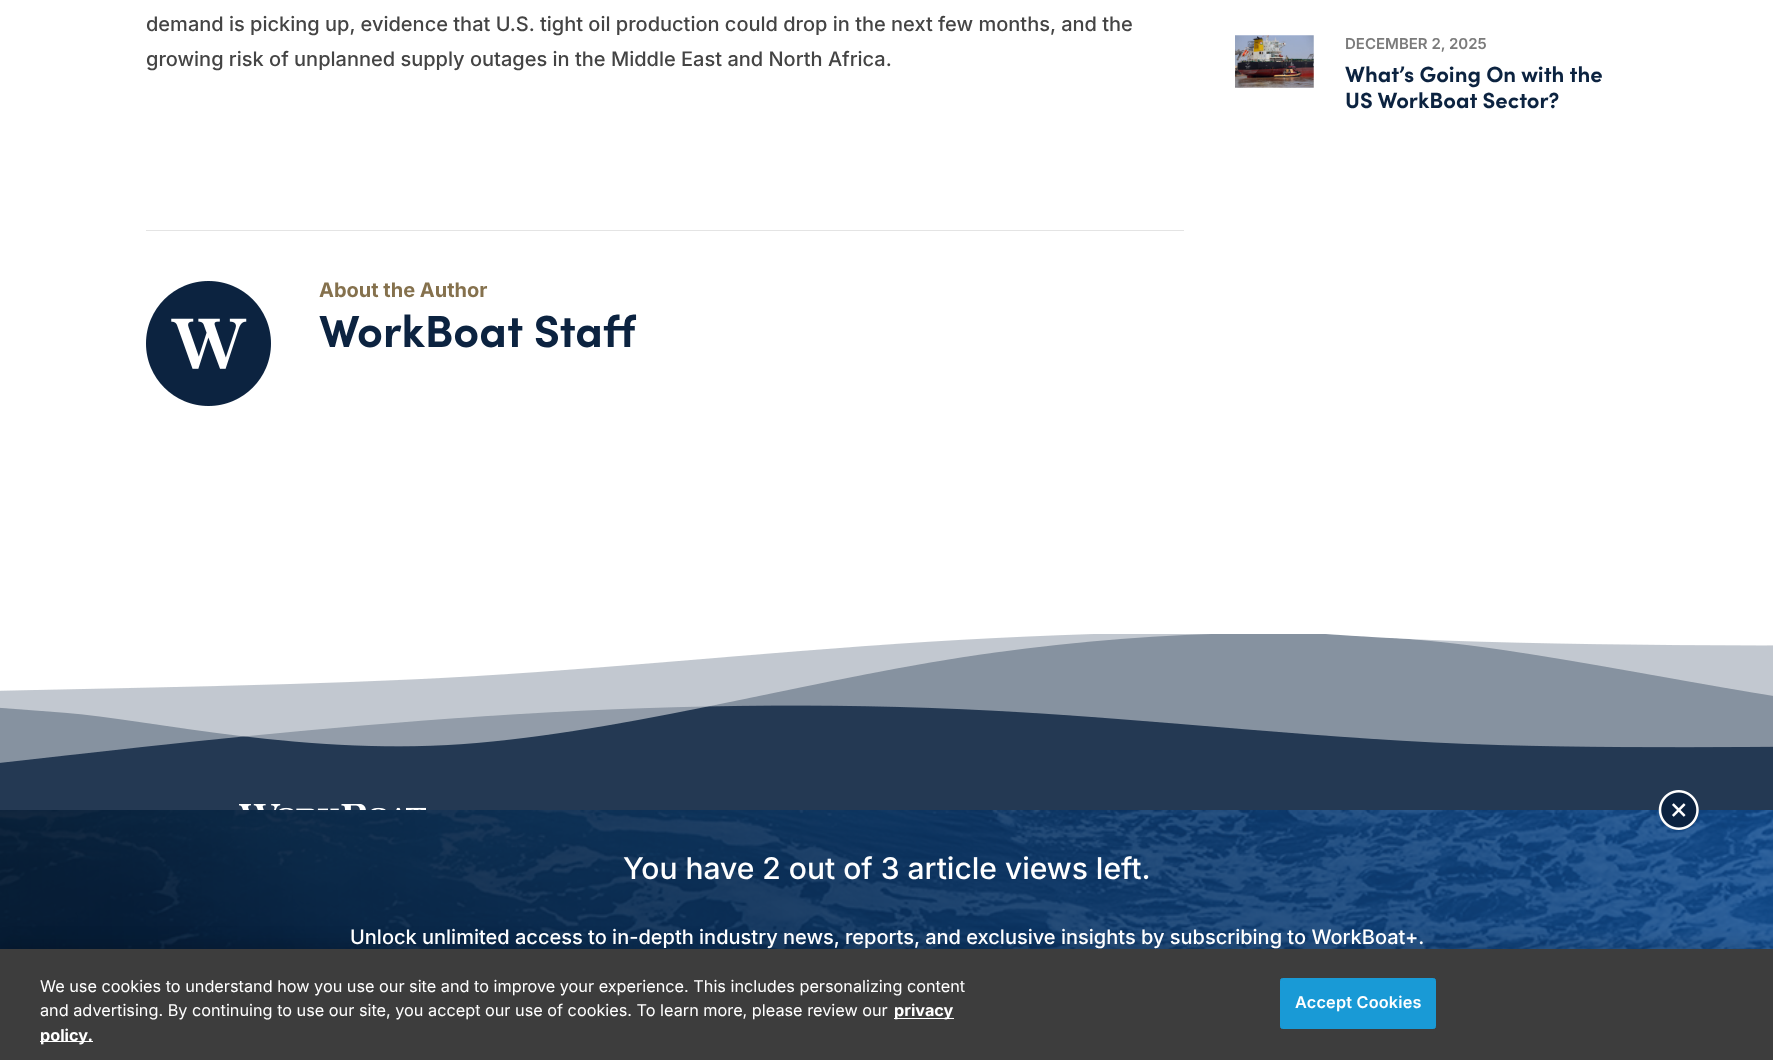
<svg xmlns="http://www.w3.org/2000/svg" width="1773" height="1060">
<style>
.a{font:500 20px Inter;fill:#444}
.b{font:bold 20px Inter;fill:#85714d}
.c{font:bold 45px Sofia;fill:#0c2340}
.d{font:600 15px Inter;fill:#7b7b7b}
.e{font:bold 22px Sofia;fill:#0c2340}
.f{font:500 30px Inter;fill:#fff}
.g{font:500 20px Inter;fill:#fff}
.h{font:16.25px Inter;fill:#fff}
.i{font:bold 16.25px Inter;fill:#fff}
.j{font:600 16.25px Inter;letter-spacing:0.2px;fill:#fff}
</style>
<rect width="100%" height="100%" fill="#fff"/>
<path fill="#e4e4e4" d="M146 230h1038v1H146z"/>
<image href="1.png" x="146" y="281" width="125" height="125"/>
<image href="2.png" x="1235" y="35" width="79" height="53"/>
<path fill="#243953" d="M0 634h1773v176H0z"/>
<image href="3.png" x="239" y="804" width="187" height="6"/>
<image href="4.png" x="0" y="634" width="1773" height="129"/>
<image href="5.png" x="0" y="810" width="1773" height="139"/>
<circle fill="#0c2340" cx="1679" cy="810" r="20"/>
<image href="6.png" x="1658" y="790" width="41" height="40"/>
<path fill="#00000033" filter="blur(11px)" d="M0 949h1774v111H0z"/>
<path fill="#3d3d3d" d="M0 949h1773v111H0z"/>
<path fill="#fff" d="M894 1018h60v1H894z"/>
<path fill="#fff" d="M40 1041h53v1H40z"/>
<rect fill="#199ad6" stroke="#199ad6" x="1280.5" y="978.5" width="155" height="50" rx="2"/>
<text class="a" x="146" y="31">demand is picking up, evidence that U.S. tight oil production could drop in the next few months, and the</text>
<text class="a" x="146" y="66">growing risk of unplanned supply outages in the Middle East and North Africa.</text>
<text class="b" x="319" y="297">About the Author</text>
<text class="c" x="319" y="347">WorkBoat Staff</text>
<text class="d" x="1345" y="49">DECEMBER 2, 2025</text>
<text class="e" x="1345" y="82">What’s Going On with the</text>
<text class="e" x="1345" y="108">US WorkBoat Sector?</text>
<text class="f" x="623" y="879">You have 2 out of 3 article views left.</text>
<text class="g" x="350" y="944">Unlock unlimited access to in-depth industry news, reports, and exclusive insights by subscribing to WorkBoat+.</text>
<text class="h" x="40" y="992">We use cookies to understand how you use our site and to improve your experience. This includes personalizing content</text>
<text class="h" x="40" y="1016">and advertising. By continuing to use our site, you accept our use of cookies. To learn more, please review our</text>
<text class="i" x="894" y="1016">privacy</text>
<text class="i" x="40" y="1041">policy.</text>
<text class="j" x="1295" y="1008">Accept Cookies</text>
</svg>
